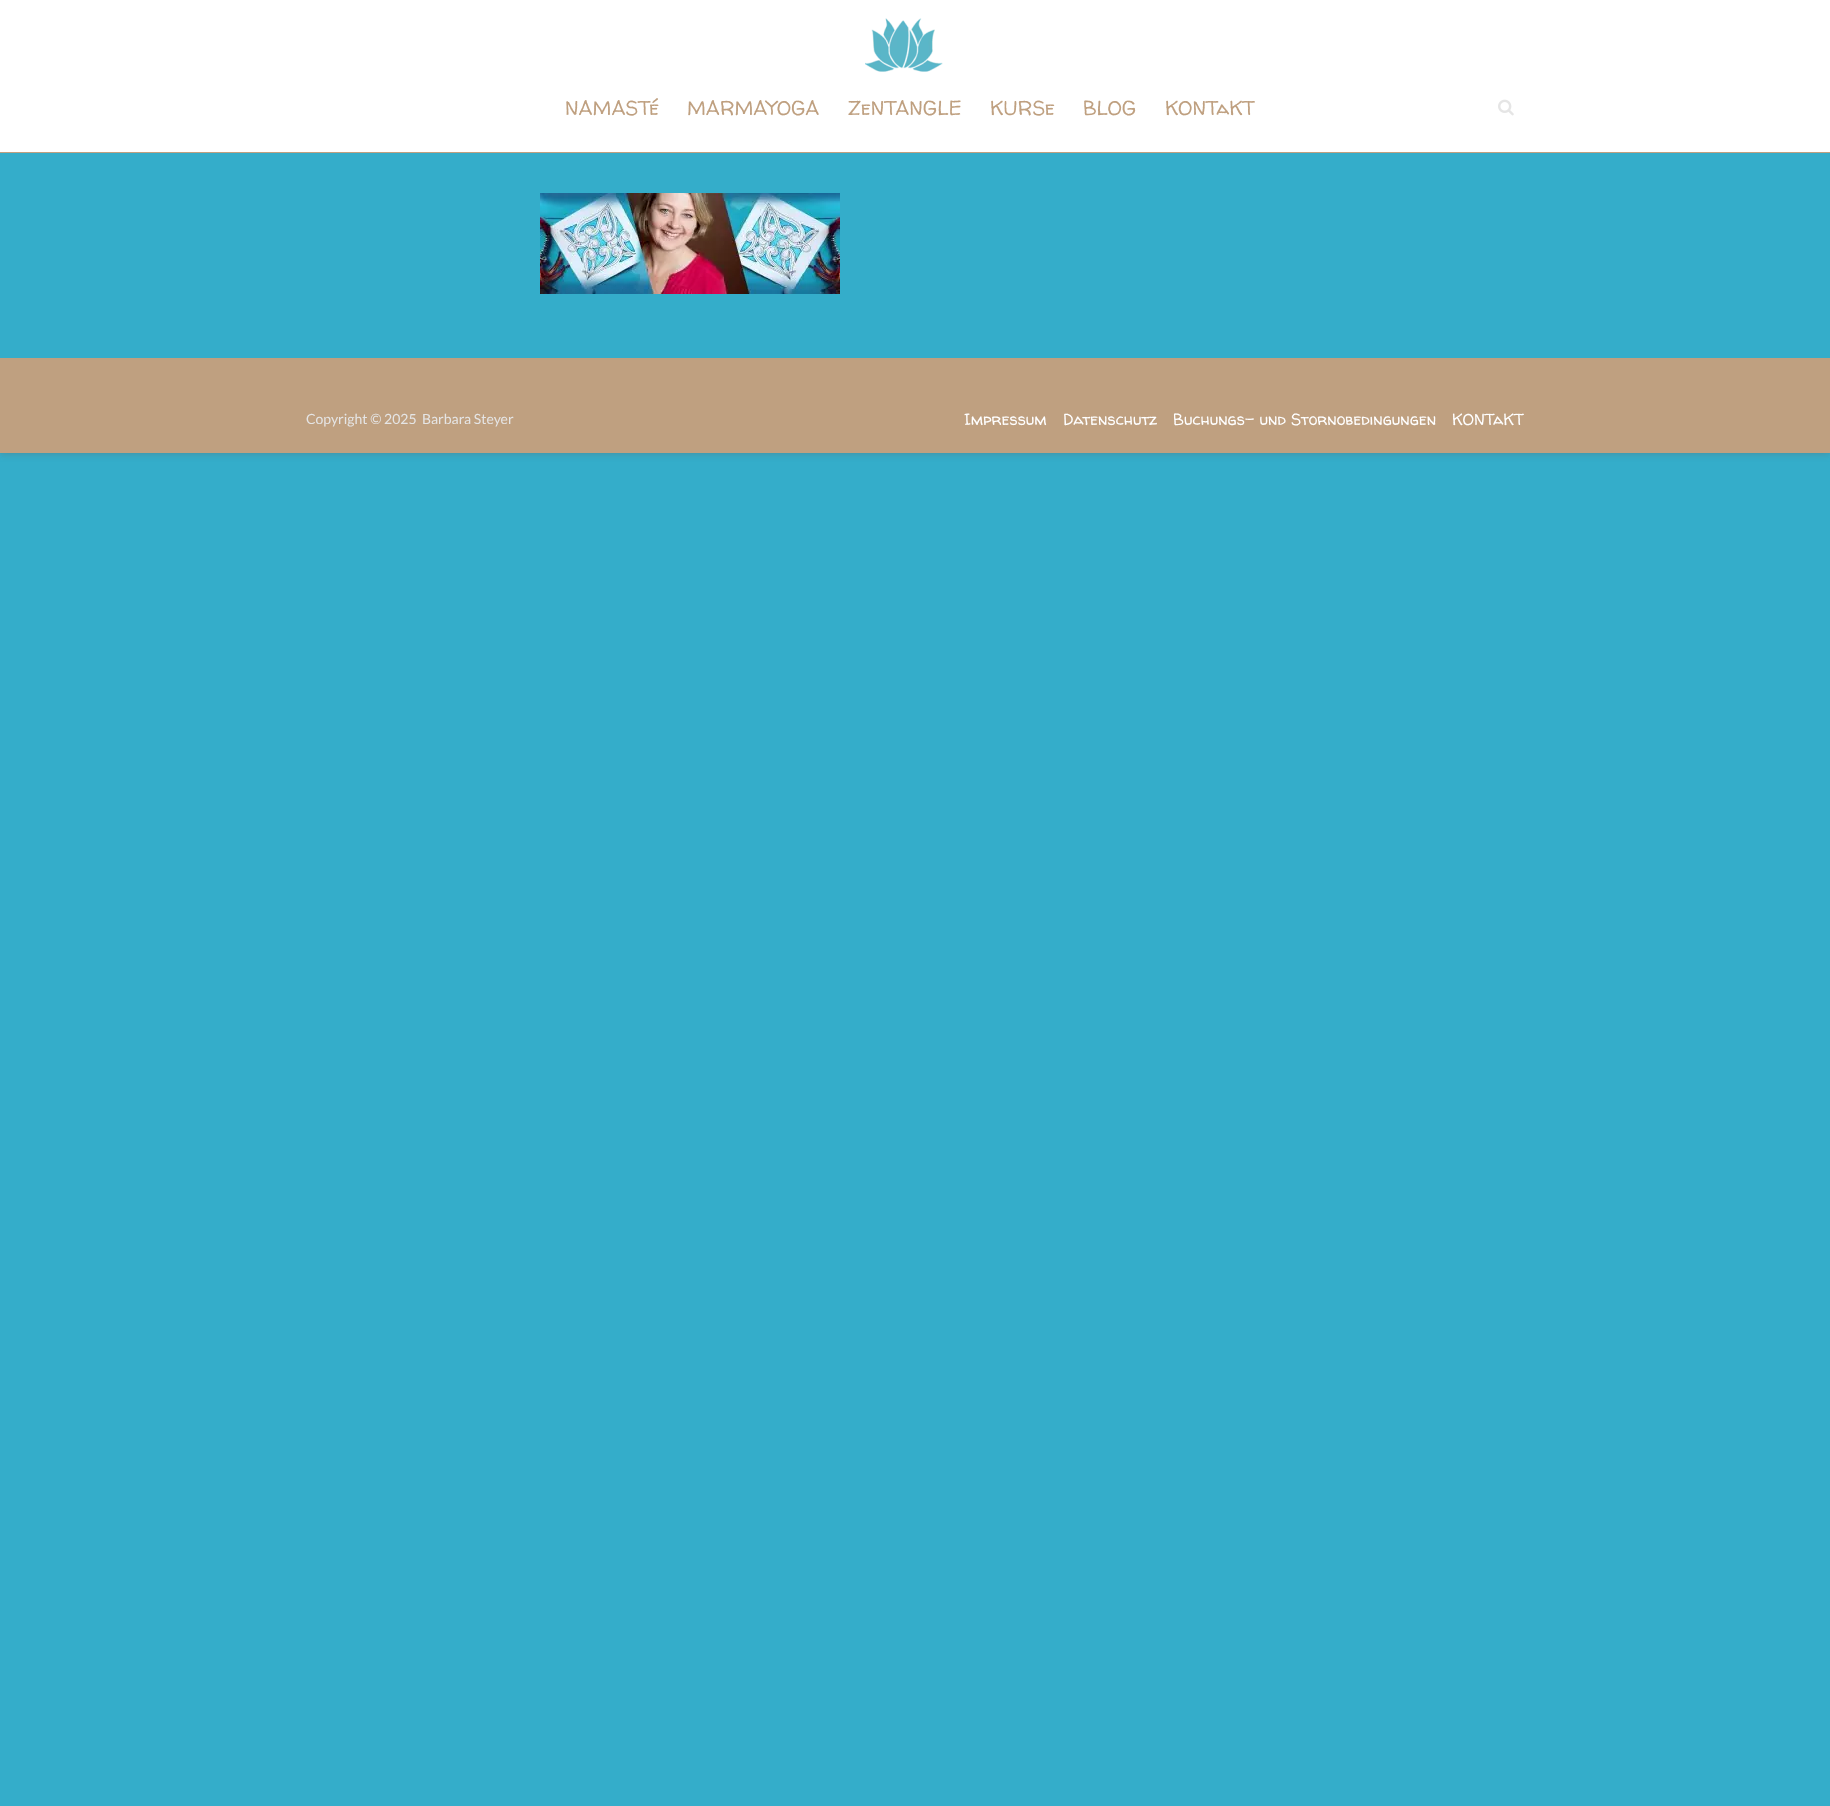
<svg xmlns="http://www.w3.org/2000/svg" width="1830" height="1806">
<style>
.a{font:20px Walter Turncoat;fill:#bfa080}
.b{font:14px Lato;fill:#e5e5e5}
.c{font:16px Walter Turncoat;fill:#fff}
</style>
<rect width="100%" height="100%" fill="#34adca"/>
<path fill="#6464644d" filter="blur(3px)" d="M0 2h1830v453H0z"/>
<path fill="#fff" d="M0 0h1830v152H0z"/>
<path fill="#bfa080" d="M0 152h1830v1H0z"/>
<image href="1.png" x="865" y="18" width="78" height="54"/>
<image href="2.png" x="1498" y="99" width="16" height="17"/>
<path fill="#34adca" d="M0 153h1830v205H0z"/>
<image href="3.png" x="540" y="193" width="300" height="101"/>
<path fill="#bfa080" d="M0 358h1830v95H0z"/>
<text class="a" x="565" y="115">NAMASTé</text>
<text class="a" x="687" y="115">MARMAYOGA</text>
<text class="a" x="848" y="115">ZeNTANGLE</text>
<text class="a" x="990" y="115">KURSe</text>
<text class="a" x="1083" y="115">BLOG</text>
<text class="a" x="1165" y="115">KONTaKT</text>
<text class="b" xml:space="preserve" x="306" y="424">Copyright © 2025  Barbara Steyer</text>
<text class="c" x="964" y="425">Impressum</text>
<text class="c" x="1063" y="425">Datenschutz</text>
<text class="c" x="1173" y="425">Buchungs- und Stornobedingungen</text>
<text class="c" x="1452" y="425">KONTaKT</text>
</svg>
